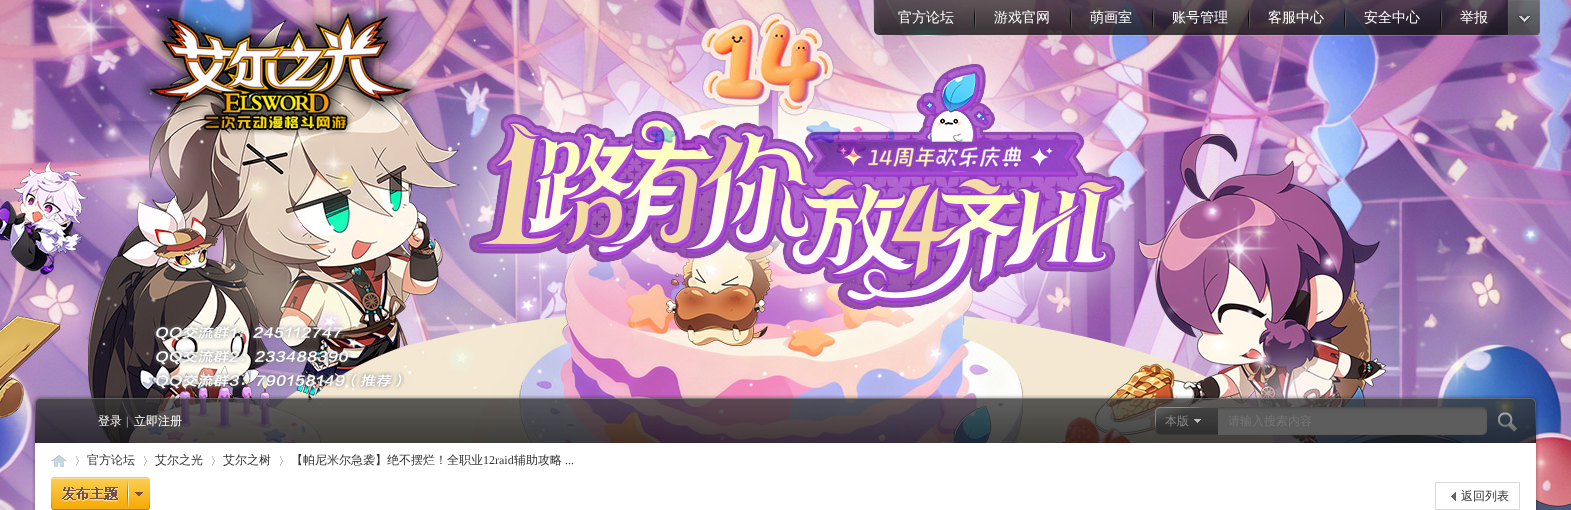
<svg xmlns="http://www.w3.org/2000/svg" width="1571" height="510">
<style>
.a{font:500 14px WenQuanYi Zen Hei;fill:#fff}
.b{font:500 12px WenQuanYi Zen Hei;fill:#fff}
.c{font:12px Liberation Serif;fill:#d6d6d6}
.d{font:500 12px WenQuanYi Zen Hei;fill:#888}
.e{font:500 12px WenQuanYi Zen Hei;fill:#757575}
.f{font:500 12px WenQuanYi Zen Hei;fill:#333}
.g{font:12px Liberation Serif;fill:#333}
</style>
<rect width="100%" height="100%" fill="#fff"/>
<image href="1.png" x="0" y="0" width="1571" height="510"/>
<image href="2.png" x="873" y="0" width="7" height="36"/>
<image href="3.png" x="880" y="0" width="628" height="36"/>
<image href="4.png" x="893" y="19" width="65" height="17"/>
<image href="5.png" x="974" y="7" width="2" height="23"/>
<image href="6.png" x="1070" y="7" width="2" height="23"/>
<image href="7.png" x="1152" y="7" width="2" height="23"/>
<image href="8.png" x="1248" y="7" width="2" height="23"/>
<image href="9.png" x="1344" y="7" width="2" height="23"/>
<image href="10.png" x="1440" y="6" width="2" height="24"/>
<image href="11.png" x="1508" y="0" width="32" height="35"/>
<image href="12.png" x="41" y="395" width="1489" height="48"/>
<image href="13.png" x="1530" y="395" width="9" height="48"/>
<image href="14.png" x="32" y="395" width="9" height="48"/>
<image href="15.png" x="1155" y="407" width="362" height="28"/>
<image href="16.png" x="1194" y="419" width="7" height="4"/>
<image href="17.png" x="1535" y="443" width="4" height="67"/>
<image href="18.png" x="32" y="443" width="4" height="67"/>
<path fill="#fff" d="M36 443h1499v67H36z"/>
<image href="19.png" x="51" y="455" width="16" height="12"/>
<image href="20.png" x="76" y="456" width="3" height="10"/>
<image href="20.png" x="144" y="456" width="3" height="10"/>
<image href="20.png" x="212" y="456" width="3" height="10"/>
<image href="20.png" x="280" y="456" width="3" height="10"/>
<image href="21.png" x="51" y="477" width="99" height="33"/>
<image href="22.png" x="1451" y="492" width="5" height="9"/>
<path fill="none" stroke="#d9d9d9" d="M1435.5 482.5h84v27H1435.5z"/>
<text class="a" x="898" y="22">官方论坛</text>
<text class="a" x="994" y="22">游戏官网</text>
<text class="a" x="1090" y="22">萌画室</text>
<text class="a" x="1172" y="22">账号管理</text>
<text class="a" x="1268" y="22">客服中心</text>
<text class="a" x="1364" y="22">安全中心</text>
<text class="a" x="1460" y="22">举报</text>
<text class="b" x="98" y="425">登录</text>
<text class="c" x="126" y="425">|</text>
<text class="b" x="134" y="425">立即注册</text>
<text class="d" x="1165" y="425">本版</text>
<text class="e" x="1228" y="425">请输入搜索内容</text>
<text class="f" x="87" y="464">官方论坛</text>
<text class="f" x="155" y="464">艾尔之光</text>
<text class="f" x="223" y="464">艾尔之树</text>
<text class="f" x="291" y="464">【帕尼米尔急袭】绝不摆烂！全职业</text>
<text class="g" x="483" y="464">12raid</text>
<text class="f" x="514" y="464">辅助攻略</text>
<text class="g" x="565" y="464">...</text>
<text class="f" x="1461" y="500">返回列表</text>
</svg>
